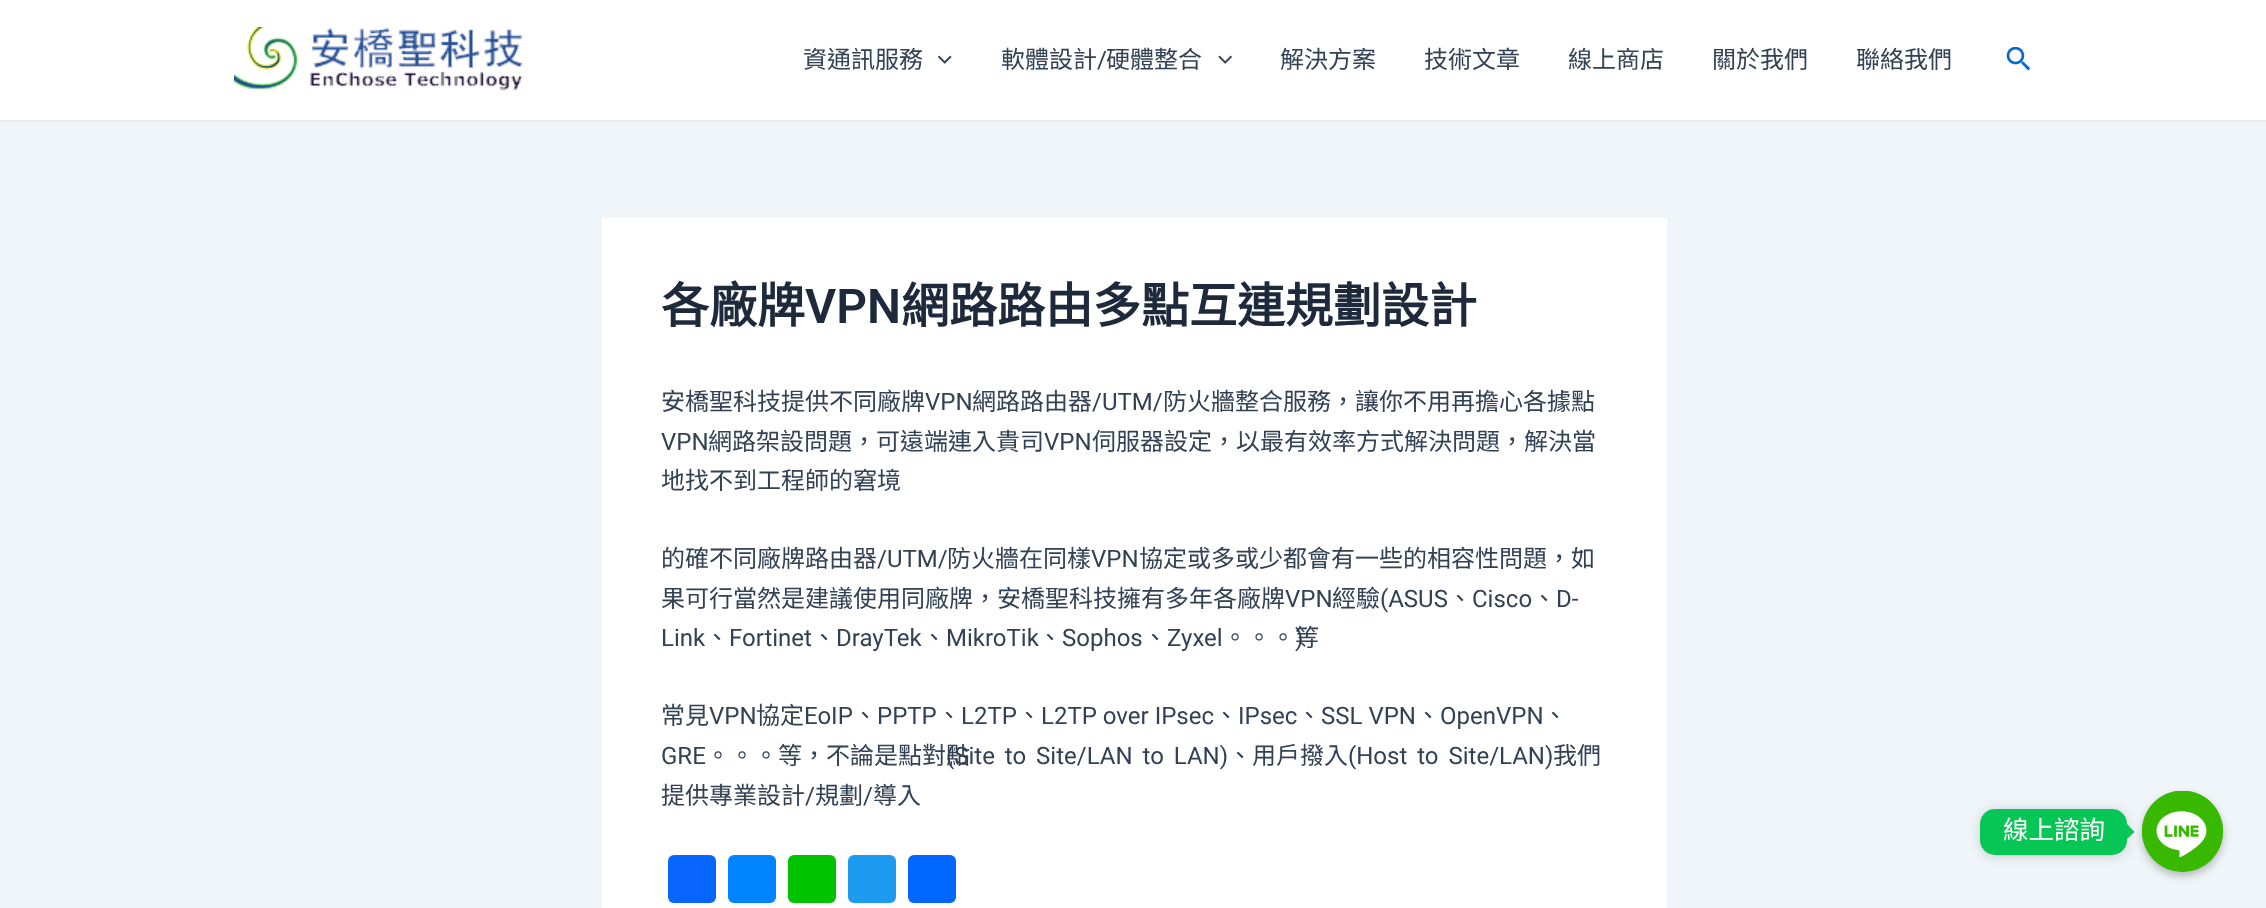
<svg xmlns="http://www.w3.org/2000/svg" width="2266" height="908">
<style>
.a{font:24px Noto Sans CJK TC;fill:#334155}
.b{font:24px Roboto;fill:#334155}
.c{font:bold 48px Noto Sans CJK TC;fill:#1e293b}
.d{font:600 48px Roboto;fill:#1e293b}
.e{font:25.5px Noto Sans CJK TC;fill:#fff}
</style>
<rect width="100%" height="100%" fill="#f0f5fa"/>
<path fill="#fff" d="M0 0h2266v120H0z"/>
<path fill="#eaeaea" d="M0 120h2266v2H0z"/>
<image href="1.png" x="234" y="27" width="289" height="64"/>
<image href="2.png" x="938" y="55" width="14" height="9"/>
<image href="3.png" x="1218" y="55" width="14" height="9"/>
<image href="4.png" x="2006" y="47" width="25" height="24"/>
<path fill="#fff" d="M602 218h1065v690H602z"/>
<rect fill="#0866ff" x="668" y="855" width="48" height="48" rx="6"/>
<rect fill="#0084ff" x="728" y="855" width="48" height="48" rx="6"/>
<rect fill="#00c300" x="788" y="855" width="48" height="48" rx="6"/>
<rect fill="#1d9bf0" x="848" y="855" width="48" height="48" rx="6"/>
<rect fill="#0166ff" x="908" y="855" width="48" height="48" rx="6"/>
<rect fill="#00000040" filter="blur(4.5px)" x="2142" y="795" width="81" height="81" rx="40.5"/>
<circle fill="#38b900" cx="2182.5" cy="831.5" r="40.5"/>
<image href="5.png" x="2142" y="791" width="81" height="81"/>
<rect fill="#00000026" filter="blur(6px)" x="1980" y="810" width="147" height="47" rx="15"/>
<rect fill="#06c755" x="1980" y="809" width="147" height="46" rx="15"/>
<path fill="#06c755" d="M2127 839v-15l7.5 8z"/>
<text class="a" x="803" y="68">資通訊服務</text>
<text class="a" x="1001" y="68">軟體設計</text>
<text class="b" x="1097" y="68">/</text>
<text class="a" x="1106" y="68">硬體整合</text>
<text class="a" x="1280" y="68">解決方案</text>
<text class="a" x="1424" y="68">技術文章</text>
<text class="a" x="1568" y="68">線上商店</text>
<text class="a" x="1712" y="68">關於我們</text>
<text class="a" x="1856" y="68">聯絡我們</text>
<text class="c" x="661" y="323">各廠牌</text>
<text class="d" x="805" y="323">VPN</text>
<text class="c" x="901" y="323">網路路由多點互連規劃設計</text>
<text class="a" x="661" y="410">安橋聖科技提供不同廠牌</text>
<text class="b" x="925" y="410">VPN</text>
<text class="a" x="972" y="410">網路路由器</text>
<text class="b" x="1092" y="410">/UTM/</text>
<text class="a" x="1163" y="410">防火牆整合服務，讓你不用再擔心各據點</text>
<text class="b" x="661" y="450">VPN</text>
<text class="a" x="708" y="450">網路架設問題，可遠端連入貴司</text>
<text class="b" x="1044" y="450">VPN</text>
<text class="a" x="1092" y="450">伺服器設定，以最有效率方式解決問題，解決當</text>
<text class="a" x="661" y="489">地找不到工程師的窘境</text>
<text class="a" x="661" y="567">的確不同廠牌路由器</text>
<text class="b" x="877" y="567">/UTM/</text>
<text class="a" x="947" y="567">防火牆在同樣</text>
<text class="b" x="1091" y="567">VPN</text>
<text class="a" x="1139" y="567">協定或多或少都會有一些的相容性問題，如</text>
<text class="a" x="661" y="607">果可行當然是建議使用同廠牌，安橋聖科技擁有多年各廠牌</text>
<text class="b" x="1285" y="607">VPN</text>
<text class="a" x="1332" y="607">經驗</text>
<text class="b" x="1380" y="607">(ASUS</text>
<text class="a" x="1448" y="607">、</text>
<text class="b" x="1472" y="607">Cisco</text>
<text class="a" x="1532" y="607">、</text>
<text class="b" x="1556" y="607">D-</text>
<text class="b" x="661" y="646">Link</text>
<text class="a" x="705" y="646">、</text>
<text class="b" x="729" y="646">Fortinet</text>
<text class="a" x="812" y="646">、</text>
<text class="b" x="836" y="646">DrayTek</text>
<text class="a" x="922" y="646">、</text>
<text class="b" x="946" y="646">MikroTik</text>
<text class="a" x="1038" y="646">、</text>
<text class="b" x="1062" y="646">Sophos</text>
<text class="a" x="1143" y="646">、</text>
<text class="b" x="1167" y="646">Zyxel</text>
<text class="a" x="1223" y="646">。。。等</text>
<text class="b" x="1295" y="646">)</text>
<text class="a" x="661" y="724">常見</text>
<text class="b" x="709" y="724">VPN</text>
<text class="a" x="756" y="724">協定</text>
<text class="b" x="804" y="724">EoIP</text>
<text class="a" x="853" y="724">、</text>
<text class="b" x="877" y="724">PPTP</text>
<text class="a" x="937" y="724">、</text>
<text class="b" x="961" y="724">L2TP</text>
<text class="a" x="1017" y="724">、</text>
<text class="b" x="1041" y="724">L2TP over IPsec</text>
<text class="a" x="1214" y="724">、</text>
<text class="b" x="1238" y="724">IPsec</text>
<text class="a" x="1297" y="724">、</text>
<text class="b" x="1321" y="724">SSL VPN</text>
<text class="a" x="1416" y="724">、</text>
<text class="b" x="1440" y="724">OpenVPN</text>
<text class="a" x="1543" y="724">、</text>
<text class="b" x="661" y="764">GRE</text>
<text class="a" x="706" y="764">。。。等，不論是點對點</text>
<text class="b" x="946" y="764" word-spacing="4">(Site to Site/LAN to LAN)</text>
<text class="a" x="1228" y="764">、用戶撥入</text>
<text class="b" x="1348" y="764" word-spacing="4">(Host to Site/LAN)</text>
<text class="a" x="1553" y="764">我們</text>
<text class="a" x="661" y="804">提供專業設計</text>
<text class="b" x="805" y="804">/</text>
<text class="a" x="815" y="804">規劃</text>
<text class="b" x="863" y="804">/</text>
<text class="a" x="873" y="804">導入</text>
<text class="e" x="2003" y="839">線上諮詢</text>
</svg>
